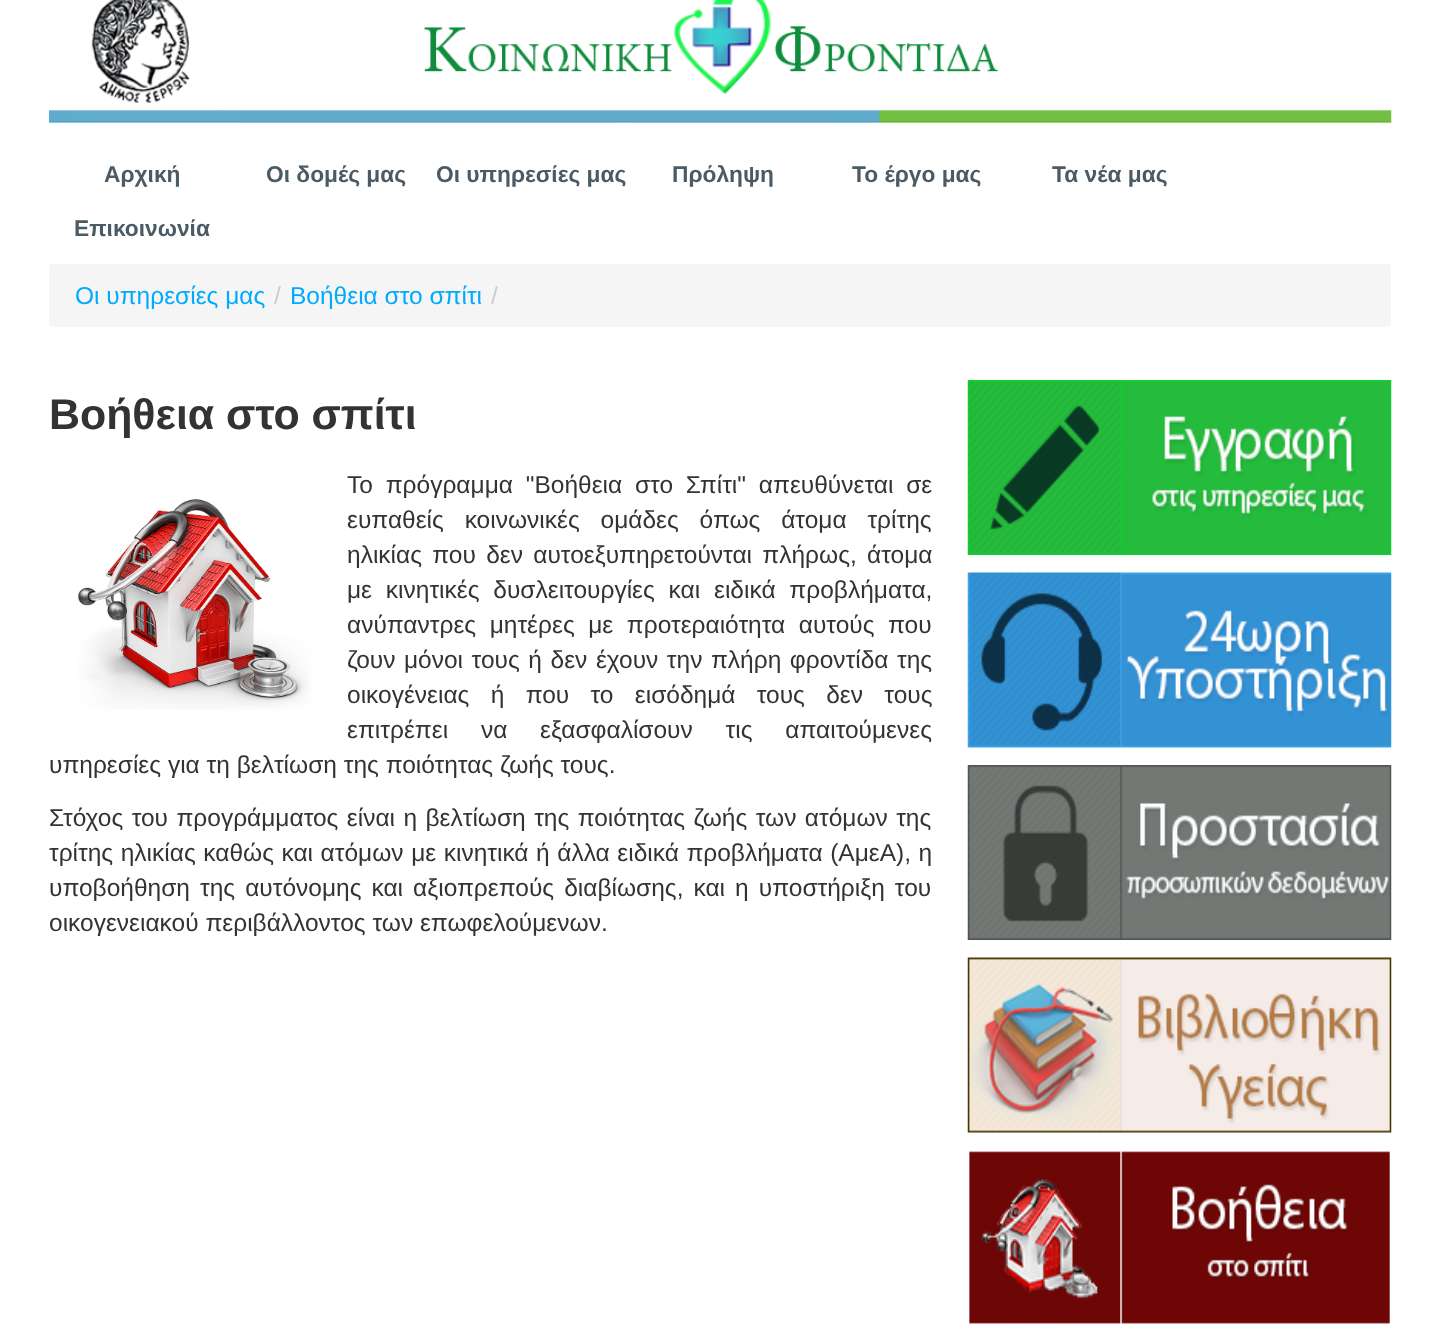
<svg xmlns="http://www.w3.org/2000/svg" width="1439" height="1325">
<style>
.a{font:bold 22.75px Liberation Sans;fill:#4b5b65}
.b{font:24.5px Liberation Sans;fill:#0af}
.c{font:24.5px Liberation Sans;fill:#ccc}
.d{font:bold 42.9px Liberation Sans;fill:#333}
.e{font:24.5px Liberation Sans;fill:#333}
</style>
<rect width="100%" height="100%" fill="#fff"/>
<image href="1.png" x="49" y="0" width="1343" height="123"/>
<rect fill="#f5f5f5" x="49" y="264" width="1342" height="63" rx="4"/>
<image href="2.png" x="78" y="499" width="233" height="211"/>
<image href="3.png" x="967" y="380" width="425" height="175"/>
<image href="4.png" x="967" y="572" width="425" height="176"/>
<image href="5.png" x="967" y="765" width="425" height="175"/>
<image href="6.png" x="967" y="957" width="425" height="176"/>
<image href="7.png" x="969" y="1151" width="421" height="173"/>
<text class="a" x="104" y="182">Αρχική</text>
<text class="a" x="266" y="182">Οι δομές μας</text>
<text class="a" x="436" y="182">Οι υπηρεσίες μας</text>
<text class="a" x="672" y="182">Πρόληψη</text>
<text class="a" x="852" y="182">Το έργο μας</text>
<text class="a" x="1052" y="182">Τα νέα μας</text>
<text class="a" x="74" y="236">Επικοινωνία</text>
<text class="b" x="75" y="304">Οι υπηρεσίες μας</text>
<text class="c" x="274" y="304">/</text>
<text class="b" x="290" y="304">Βοήθεια στο σπίτι</text>
<text class="c" x="491" y="304">/</text>
<text class="d" x="49" y="429">Βοήθεια στο σπίτι</text>
<text class="e" x="347" y="493" word-spacing="6">Το πρόγραμμα "Βοήθεια στο Σπίτι" απευθύνεται σε</text>
<text class="e" x="347" y="528" word-spacing="14">ευπαθείς κοινωνικές ομάδες όπως άτομα τρίτης</text>
<text class="e" x="347" y="563" word-spacing="3.5">ηλικίας που δεν αυτοεξυπηρετούνται πλήρως, άτομα</text>
<text class="e" x="347" y="598" word-spacing="7">με κινητικές δυσλειτουργίες και ειδικά προβλήματα,</text>
<text class="e" x="347" y="633" word-spacing="6.75">ανύπαντρες μητέρες με προτεραιότητα αυτούς που</text>
<text class="e" x="347" y="668" word-spacing="1.75">ζουν μόνοι τους ή δεν έχουν την πλήρη φροντίδα της</text>
<text class="e" x="347" y="703" word-spacing="14.5">οικογένειας ή που το εισόδημά τους δεν τους</text>
<text class="e" x="347" y="738" word-spacing="26">επιτρέπει να εξασφαλίσουν τις απαιτούμενες</text>
<text class="e" x="49" y="773">υπηρεσίες για τη βελτίωση της ποιότητας ζωής τους.</text>
<text class="e" x="49" y="826" word-spacing="1.6">Στόχος του προγράμματος είναι η βελτίωση της ποιότητας ζωής των ατόμων της</text>
<text class="e" x="49" y="861" word-spacing="0.75">τρίτης ηλικίας καθώς και ατόμων με κινητικά ή άλλα ειδικά προβλήματα (ΑμεΑ), η</text>
<text class="e" x="49" y="896" word-spacing="3.25">υποβοήθηση της αυτόνομης και αξιοπρεπούς διαβίωσης, και η υποστήριξη του</text>
<text class="e" x="49" y="931">οικογενειακού περιβάλλοντος των επωφελούμενων.</text>
</svg>
